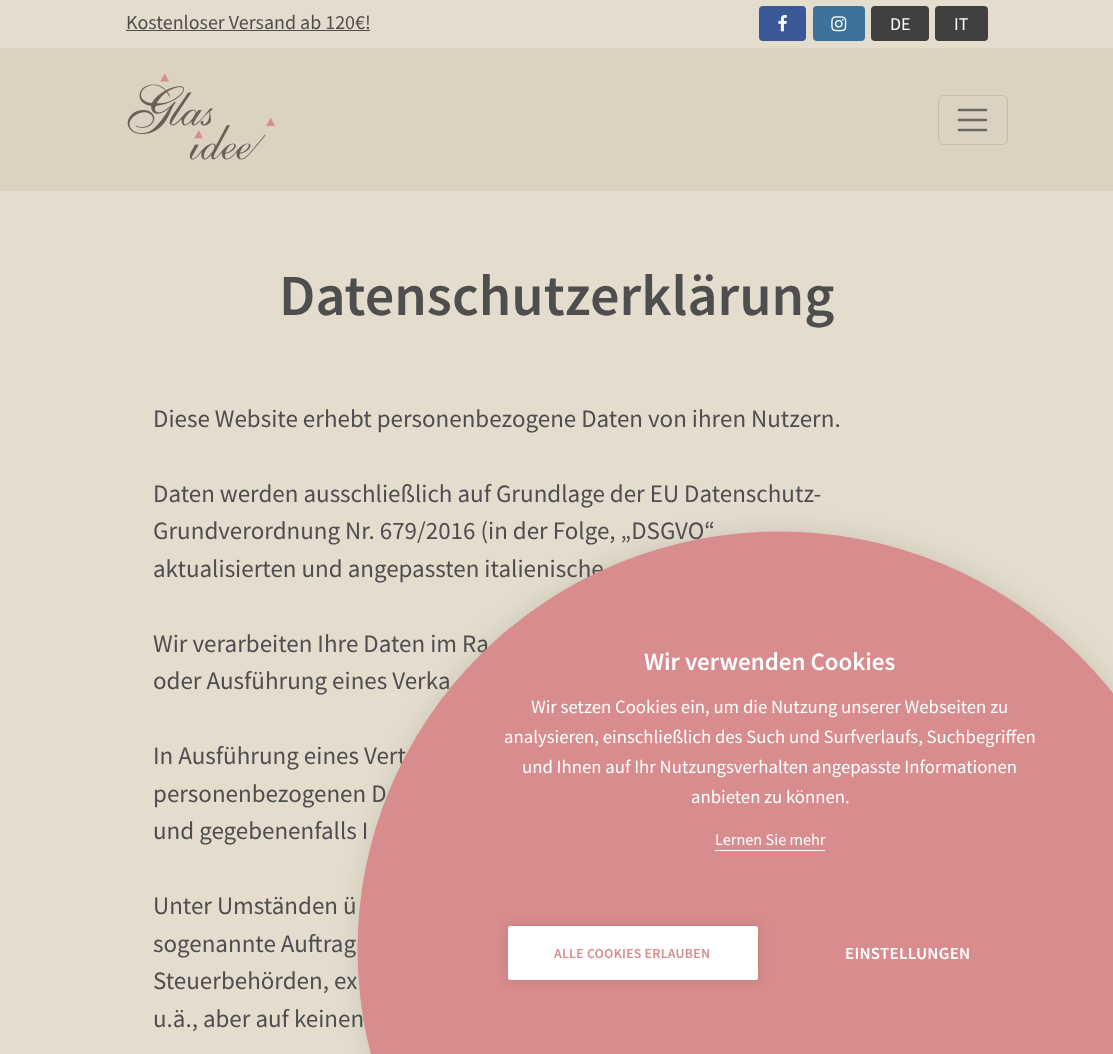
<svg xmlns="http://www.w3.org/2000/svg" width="1113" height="1054">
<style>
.a{font:20px Source Sans Pro;fill:#4e4e4e}
.b{font:18px Source Sans Pro;fill:#fff}
.c{font:600 58.25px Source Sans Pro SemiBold;fill:#4e4e4e}
.d{font:25px Source Sans Pro;fill:#4e4e4e}
.e{font:600 25px Source Sans Pro SemiBold;fill:#fff}
.f{font:18.75px Source Sans Pro;fill:#fff}
.g{font:16.25px Source Sans Pro;fill:#fff}
.h{font:600 13.75px Source Sans Pro SemiBold;letter-spacing:0.25px;fill:#d88c8d}
.i{font:600 17px Source Sans Pro SemiBold;letter-spacing:0.25px;fill:#fff}
</style>
<rect width="100%" height="100%" fill="#e4ddcd"/>
<path fill="#4e4e4e" d="M126 30h244v1H126z"/>
<rect fill="#3b5998" x="759" y="6" width="47" height="35" rx="4"/>
<image href="1.png" x="778" y="15" width="9" height="17"/>
<rect fill="#3f729b" x="813" y="6" width="52" height="35" rx="4"/>
<image href="2.png" x="831" y="16" width="16" height="16"/>
<rect fill="#404040" x="871" y="6" width="58" height="35" rx="4"/>
<rect fill="#404040" x="935" y="6" width="53" height="35" rx="4"/>
<path fill="#dbd2c1" d="M0 48h1113v143H0z"/>
<image href="3.png" x="127" y="73" width="148" height="87"/>
<rect fill="none" stroke="#c5bdae" x="938.5" y="95.5" width="69" height="49" rx="4.5"/>
<path fill="none" stroke="#6e6961" stroke-width="2.5" stroke-linecap="round" d="M959 110h27m-27 10h27m-27 10h27"/>
<rect fill="#0000001a" filter="blur(12.5px)" x="358" y="531" width="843" height="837" rx="418.5"/>
<text class="a" x="126" y="29">Kostenloser Versand ab 120€!</text>
<text class="b" x="890" y="30">DE</text>
<text class="b" x="954" y="30">IT</text>
<text class="c" x="279" y="315">Datenschutzerklärung</text>
<text class="d" x="153" y="427">Diese Website erhebt personenbezogene Daten von ihren Nutzern.</text>
<text class="d" x="153" y="502">Daten werden ausschließlich auf Grundlage der EU Datenschutz-</text>
<text class="d" x="153" y="539">Grundverordnung Nr. 679/2016 (in der Folge, „DSGVO“</text>
<text class="d" x="153" y="577">aktualisierten und angepassten italienische</text>
<text class="d" x="153" y="652">Wir verarbeiten Ihre Daten im Ra</text>
<text class="d" x="153" y="689">oder Ausführung eines Verka</text>
<text class="d" x="153" y="764">In Ausführung eines Vert</text>
<text class="d" x="153" y="802">personenbezogenen D</text>
<text class="d" x="153" y="839">und gegebenenfalls I</text>
<text class="d" x="153" y="914">Unter Umständen ü</text>
<text class="d" x="153" y="952">sogenannte Auftrag</text>
<text class="d" x="153" y="989">Steuerbehörden, ex</text>
<text class="d" x="153" y="1027">u.ä., aber auf keinen</text>
<ellipse fill="#d88c8d" cx="779.5" cy="949.5" rx="422" ry="418"/>
<text class="e" x="644" y="670">Wir verwenden Cookies</text>
<text class="f" x="531" y="713">Wir setzen Cookies ein, um die Nutzung unserer Webseiten zu</text>
<text class="f" x="504" y="743">analysieren, einschließlich des Such und Surfverlaufs, Suchbegriffen</text>
<text class="f" x="522" y="773">und Ihnen auf Ihr Nutzungsverhalten angepasste Informationen</text>
<text class="f" x="691" y="803">anbieten zu können.</text>
<text class="g" x="715" y="845">Lernen Sie mehr</text>
<path fill="#fff" d="M715 850h110v1H715z"/>
<rect fill="#0000001f" filter="blur(6px)" x="508" y="926" width="250" height="54" rx="2.5"/>
<rect fill="#fff" x="508" y="926" width="250" height="54" rx="2.5"/>
<text class="h" x="554" y="958">ALLE COOKIES ERLAUBEN</text>
<text class="i" x="845" y="959">EINSTELLUNGEN</text>
</svg>
